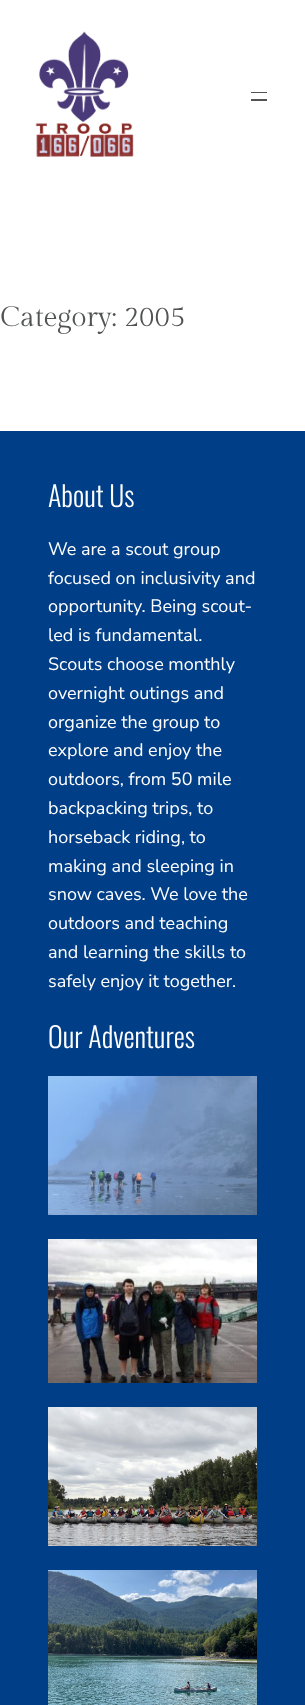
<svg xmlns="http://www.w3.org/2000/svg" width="305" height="1705">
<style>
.a{font:28px Gilda Display;fill:#515354}
.b{font:300 28px Oswald;fill:#fff}
.c{font:18px Nunito Sans;fill:#fff}
</style>
<rect width="100%" height="100%" fill="#fff"/>
<image href="1.png" x="35" y="31" width="99" height="126"/>
<path fill="#515354" d="M251 92h16v1H251z"/>
<path fill="#515354" d="M251 99h16v2H251z"/>
<path fill="#003f87" d="M0 431h305v1274H0z"/>
<image href="2.png" x="48" y="1076" width="209" height="139"/>
<image href="3.png" x="48" y="1239" width="209" height="144"/>
<image href="4.png" x="48" y="1407" width="209" height="139"/>
<image href="5.png" x="48" y="1570" width="209" height="135"/>
<text class="a" x="0" y="326">Category: 2005</text>
<text class="b" x="48" y="507">About Us</text>
<text class="c" x="48" y="555">We are a scout group</text>
<text class="c" x="48" y="584">focused on inclusivity and</text>
<text class="c" x="48" y="612">opportunity. Being scout-</text>
<text class="c" x="48" y="641">led is fundamental.</text>
<text class="c" x="48" y="670">Scouts choose monthly</text>
<text class="c" x="48" y="699">overnight outings and</text>
<text class="c" x="48" y="728">organize the group to</text>
<text class="c" x="48" y="756">explore and enjoy the</text>
<text class="c" x="48" y="785">outdoors, from 50 mile</text>
<text class="c" x="48" y="814">backpacking trips, to</text>
<text class="c" x="48" y="843">horseback riding, to</text>
<text class="c" x="48" y="872">making and sleeping in</text>
<text class="c" x="48" y="900">snow caves. We love the</text>
<text class="c" x="48" y="929">outdoors and teaching</text>
<text class="c" x="48" y="958">and learning the skills to</text>
<text class="c" x="48" y="987">safely enjoy it together.</text>
<text class="b" x="48" y="1048">Our Adventures</text>
</svg>
